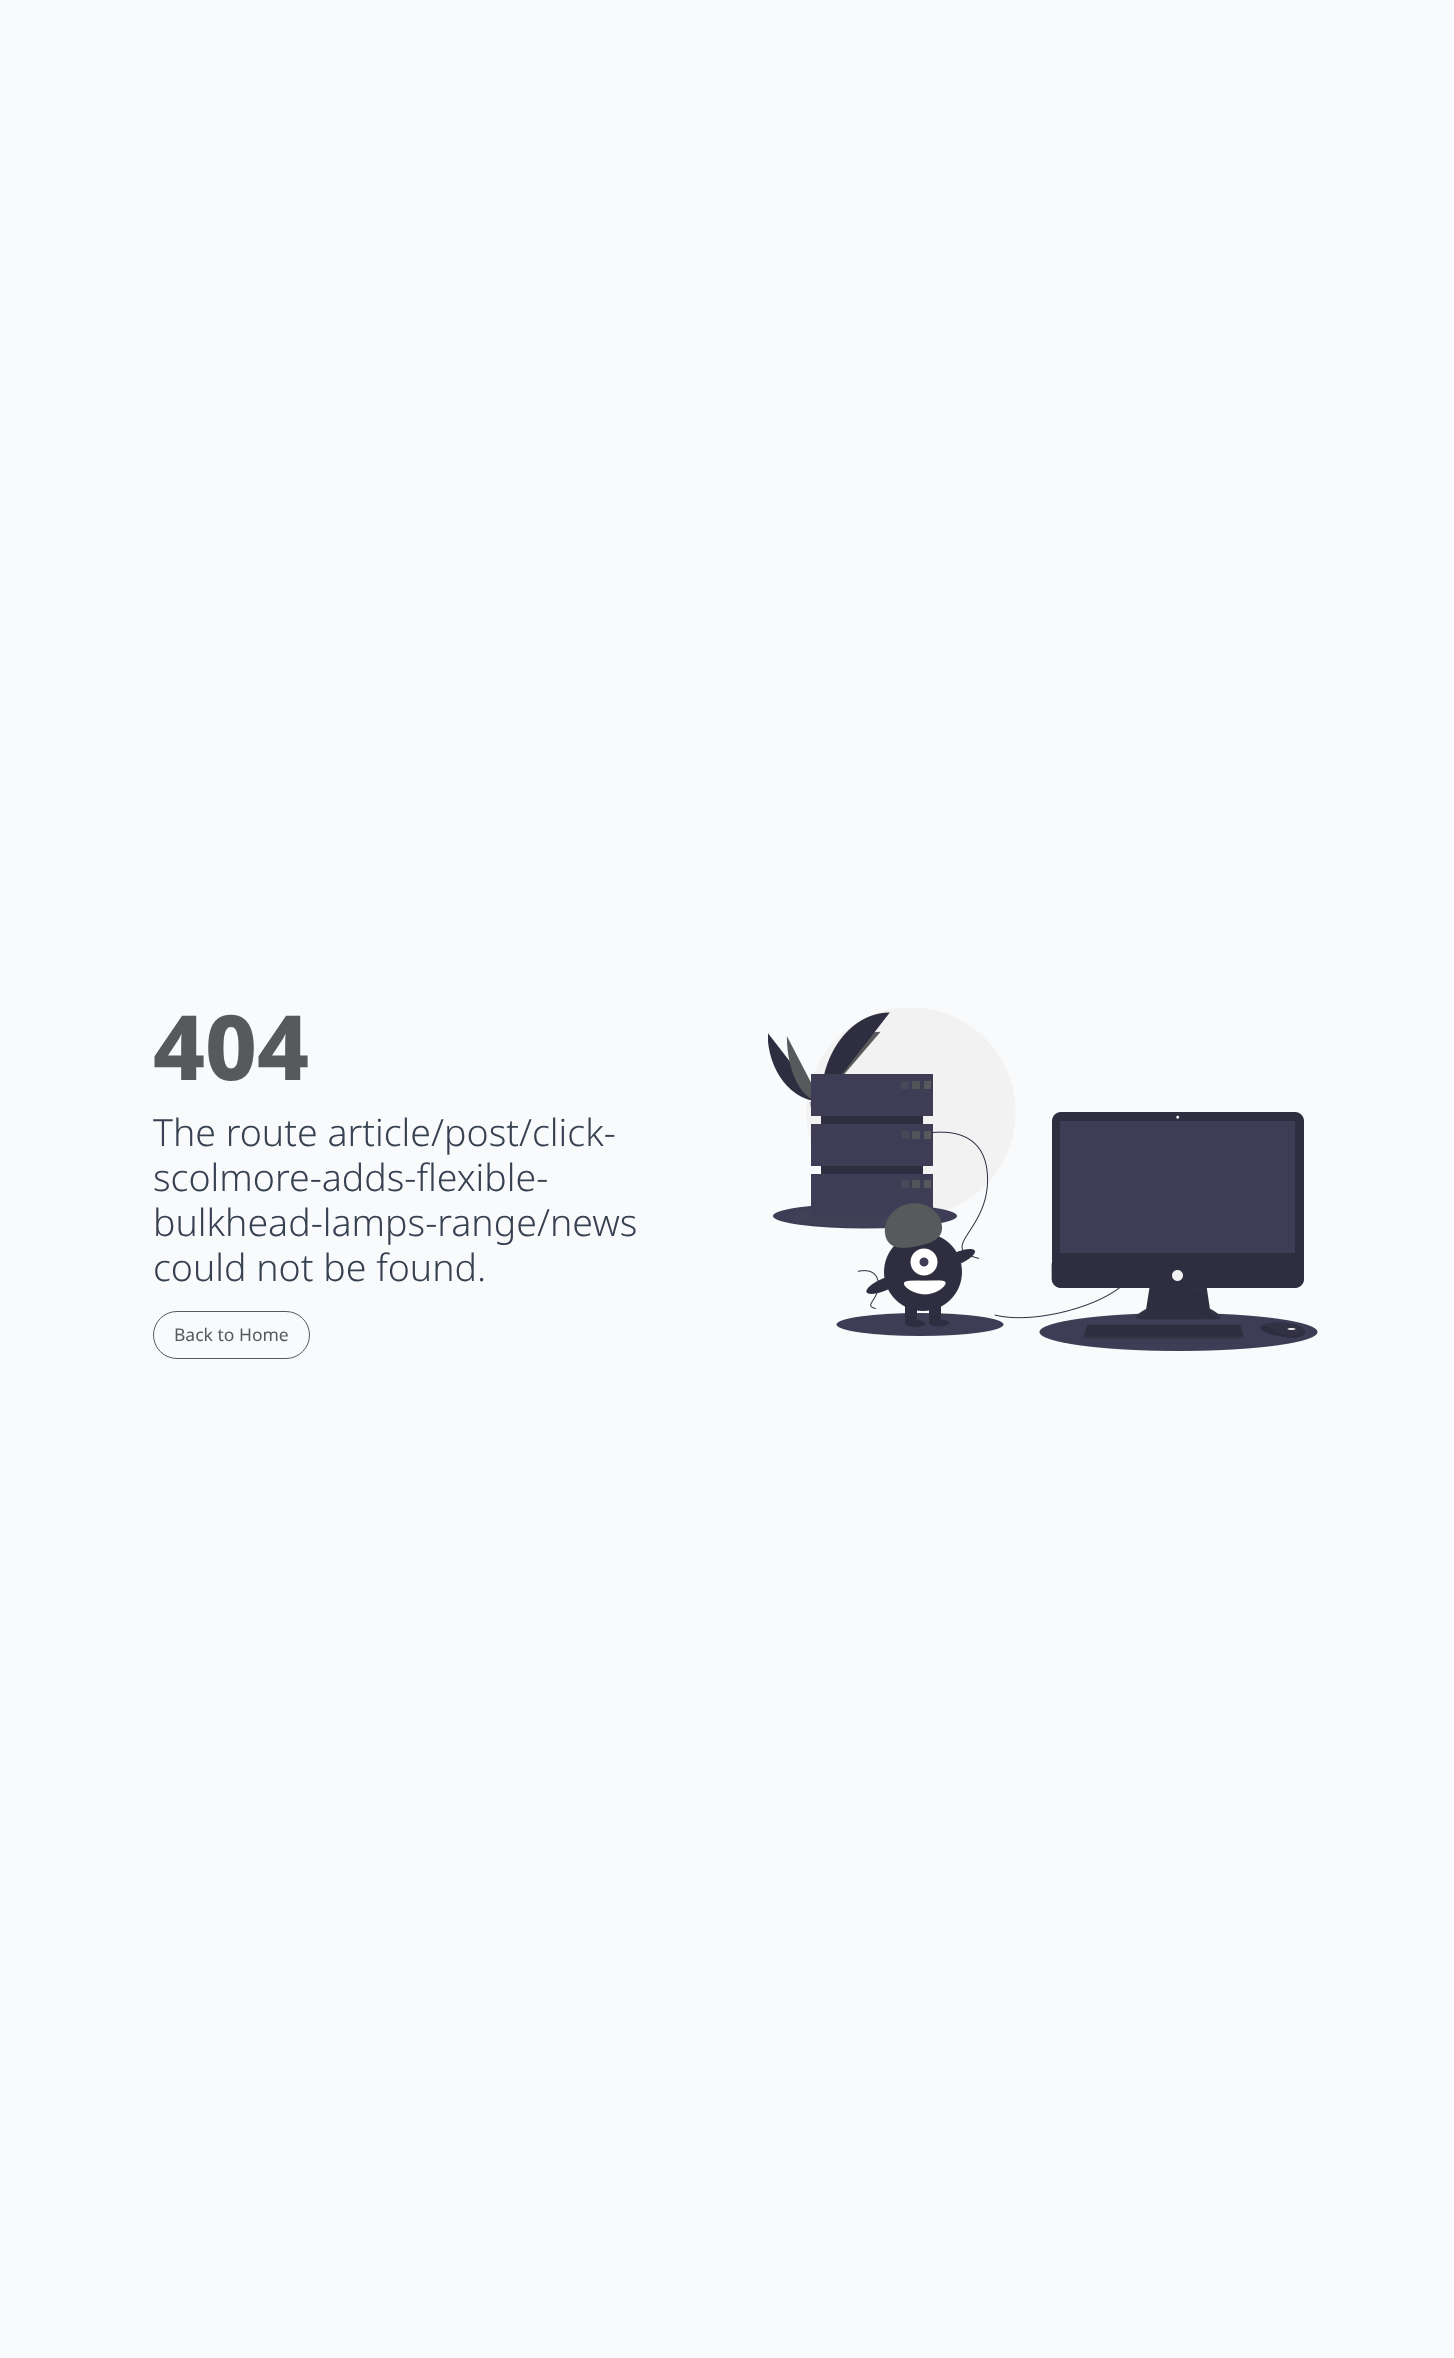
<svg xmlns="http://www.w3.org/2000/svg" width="1454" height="2358">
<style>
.a{font:800 90px Noto Sans;fill:#58595b}
.b{font:300 37.5px Noto Sans;fill:#374151}
.c{font:17.5px Noto Sans;fill:#58595b}
</style>
<rect width="100%" height="100%" fill="#f9fafb"/>
<rect fill="none" stroke="#58595b" x="153.5" y="1311.5" width="156" height="47" rx="23.5"/>
<image href="1.png" x="768" y="1008" width="550" height="343"/>
<text class="a" x="153" y="1080">404</text>
<text class="b" x="153" y="1146">The route article/post/click-</text>
<text class="b" x="153" y="1191">scolmore-adds-flexible-</text>
<text class="b" x="153" y="1236">bulkhead-lamps-range/news</text>
<text class="b" x="153" y="1281">could not be found.</text>
<text class="c" x="174" y="1341">Back to Home</text>
</svg>
